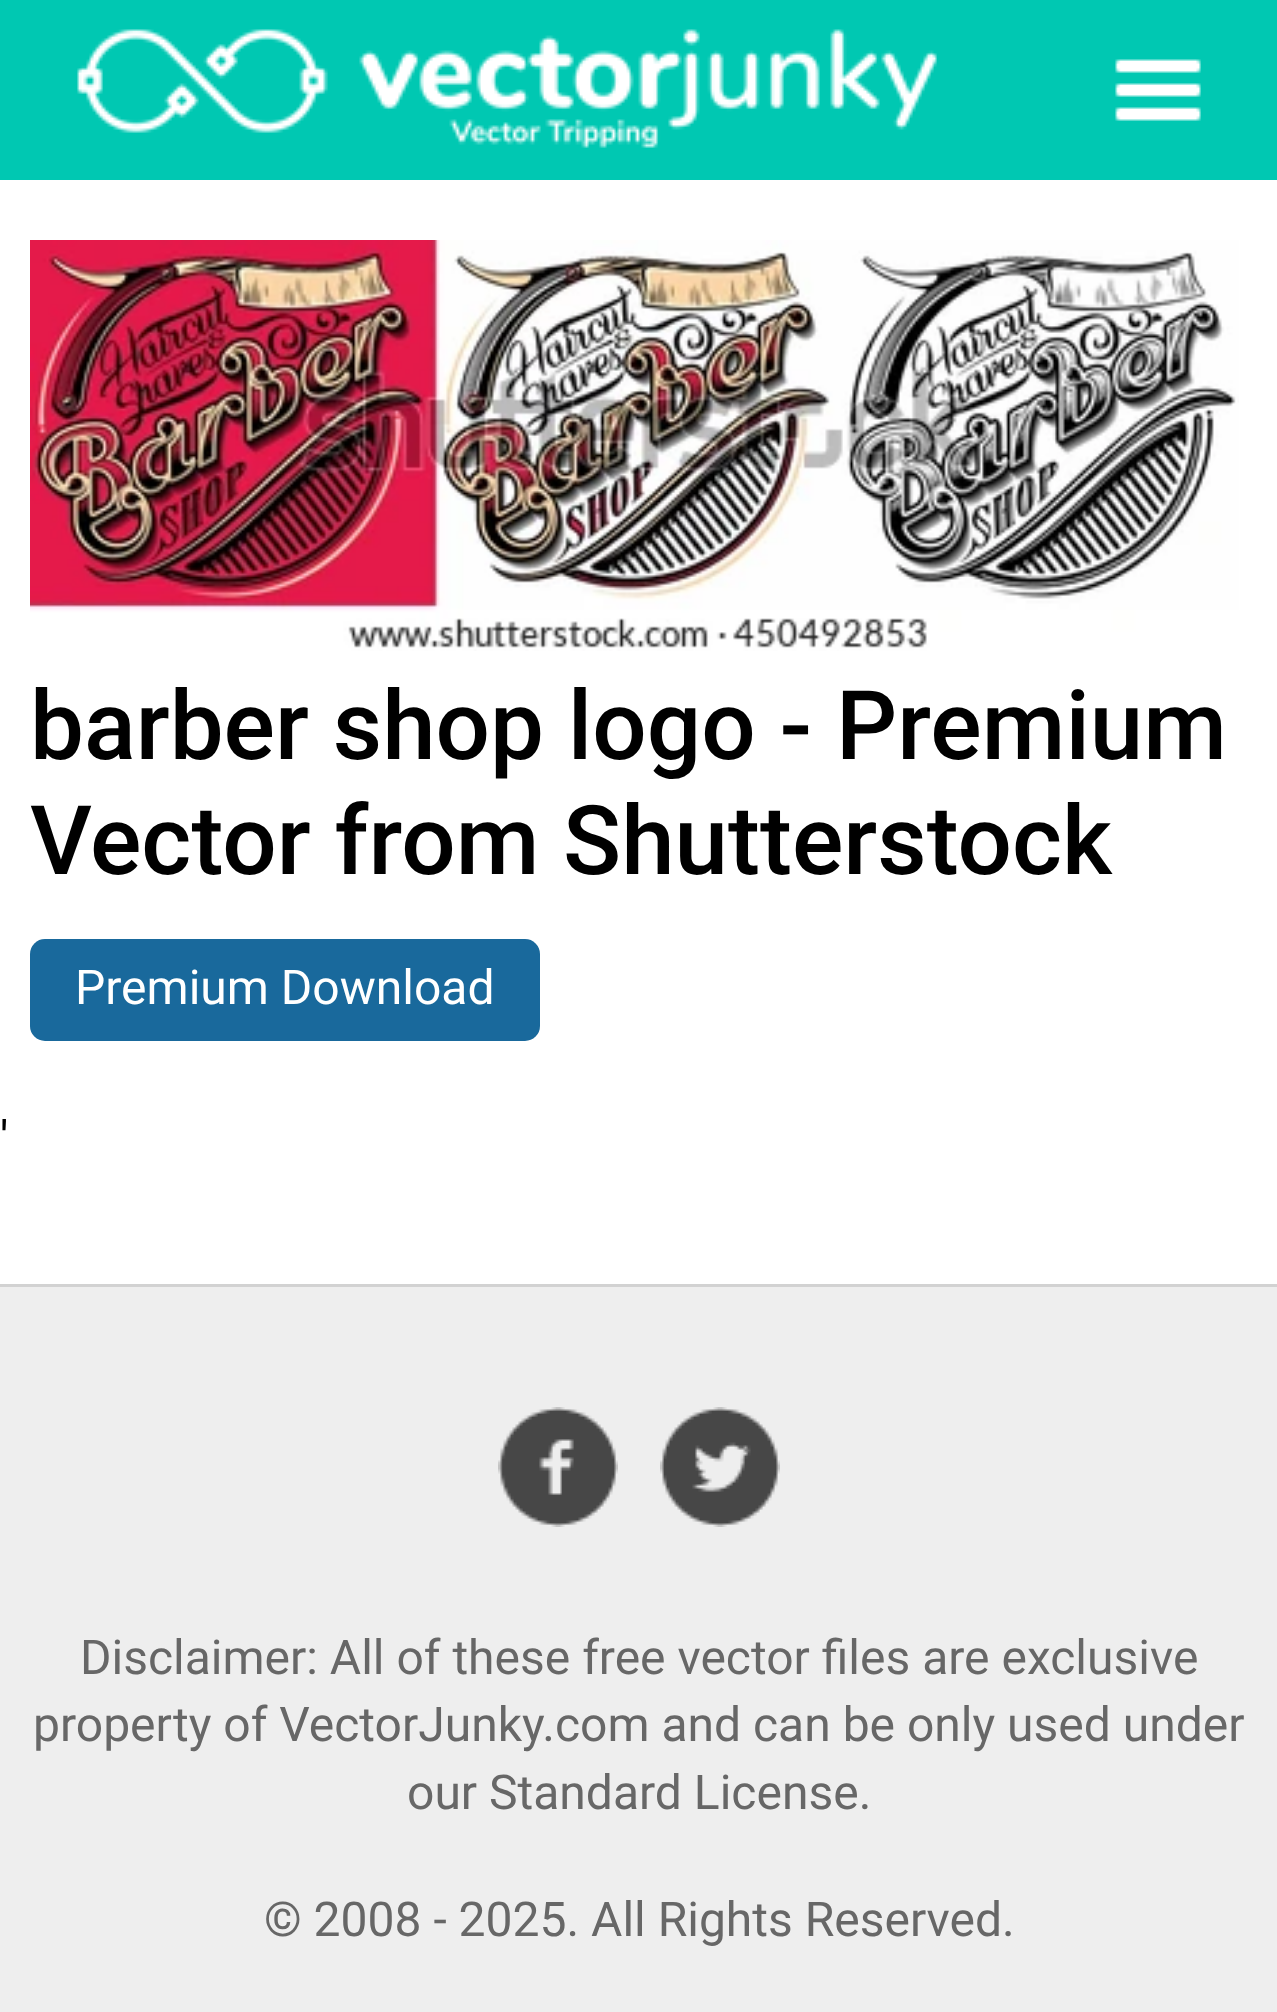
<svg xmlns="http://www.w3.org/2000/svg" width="1277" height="2012">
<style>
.a{font:500 96px Roboto;fill:#000}
.b{font:48px Roboto;fill:#fff}
.c{font:48px Roboto;fill:#000}
.d{font:48px Roboto;fill:#676767}
</style>
<rect width="100%" height="100%" fill="#fff"/>
<path fill="#00c8b2" d="M0 0h1277v180H0z"/>
<image href="1.png" x="77" y="29" width="860" height="119"/>
<image href="2.png" x="1115" y="59" width="86" height="62"/>
<image href="3.png" x="30" y="240" width="1209" height="411"/>
<rect fill="#19699c" x="30" y="939" width="510" height="102" rx="15"/>
<path fill="#eee" d="M0 1287h1277v725H0z"/>
<path fill="#d2d2d2" d="M0 1284h1277v3H0z"/>
<image href="4.png" x="498" y="1407" width="120" height="120"/>
<image href="5.png" x="660" y="1407" width="120" height="120"/>
<text class="a" x="30" y="759">barber shop logo - Premium</text>
<text class="a" x="30" y="874">Vector from Shutterstock</text>
<text class="b" x="75" y="1004">Premium Download</text>
<text class="c" x="0" y="1155">'</text>
<text class="d" x="80" y="1674">Disclaimer: All of these free vector files are exclusive</text>
<text class="d" x="33" y="1741">property of VectorJunky.com and can be only used under</text>
<text class="d" x="407" y="1809">our Standard License.</text>
<text class="d" x="264" y="1936">© 2008 - 2025. All Rights Reserved.</text>
</svg>
